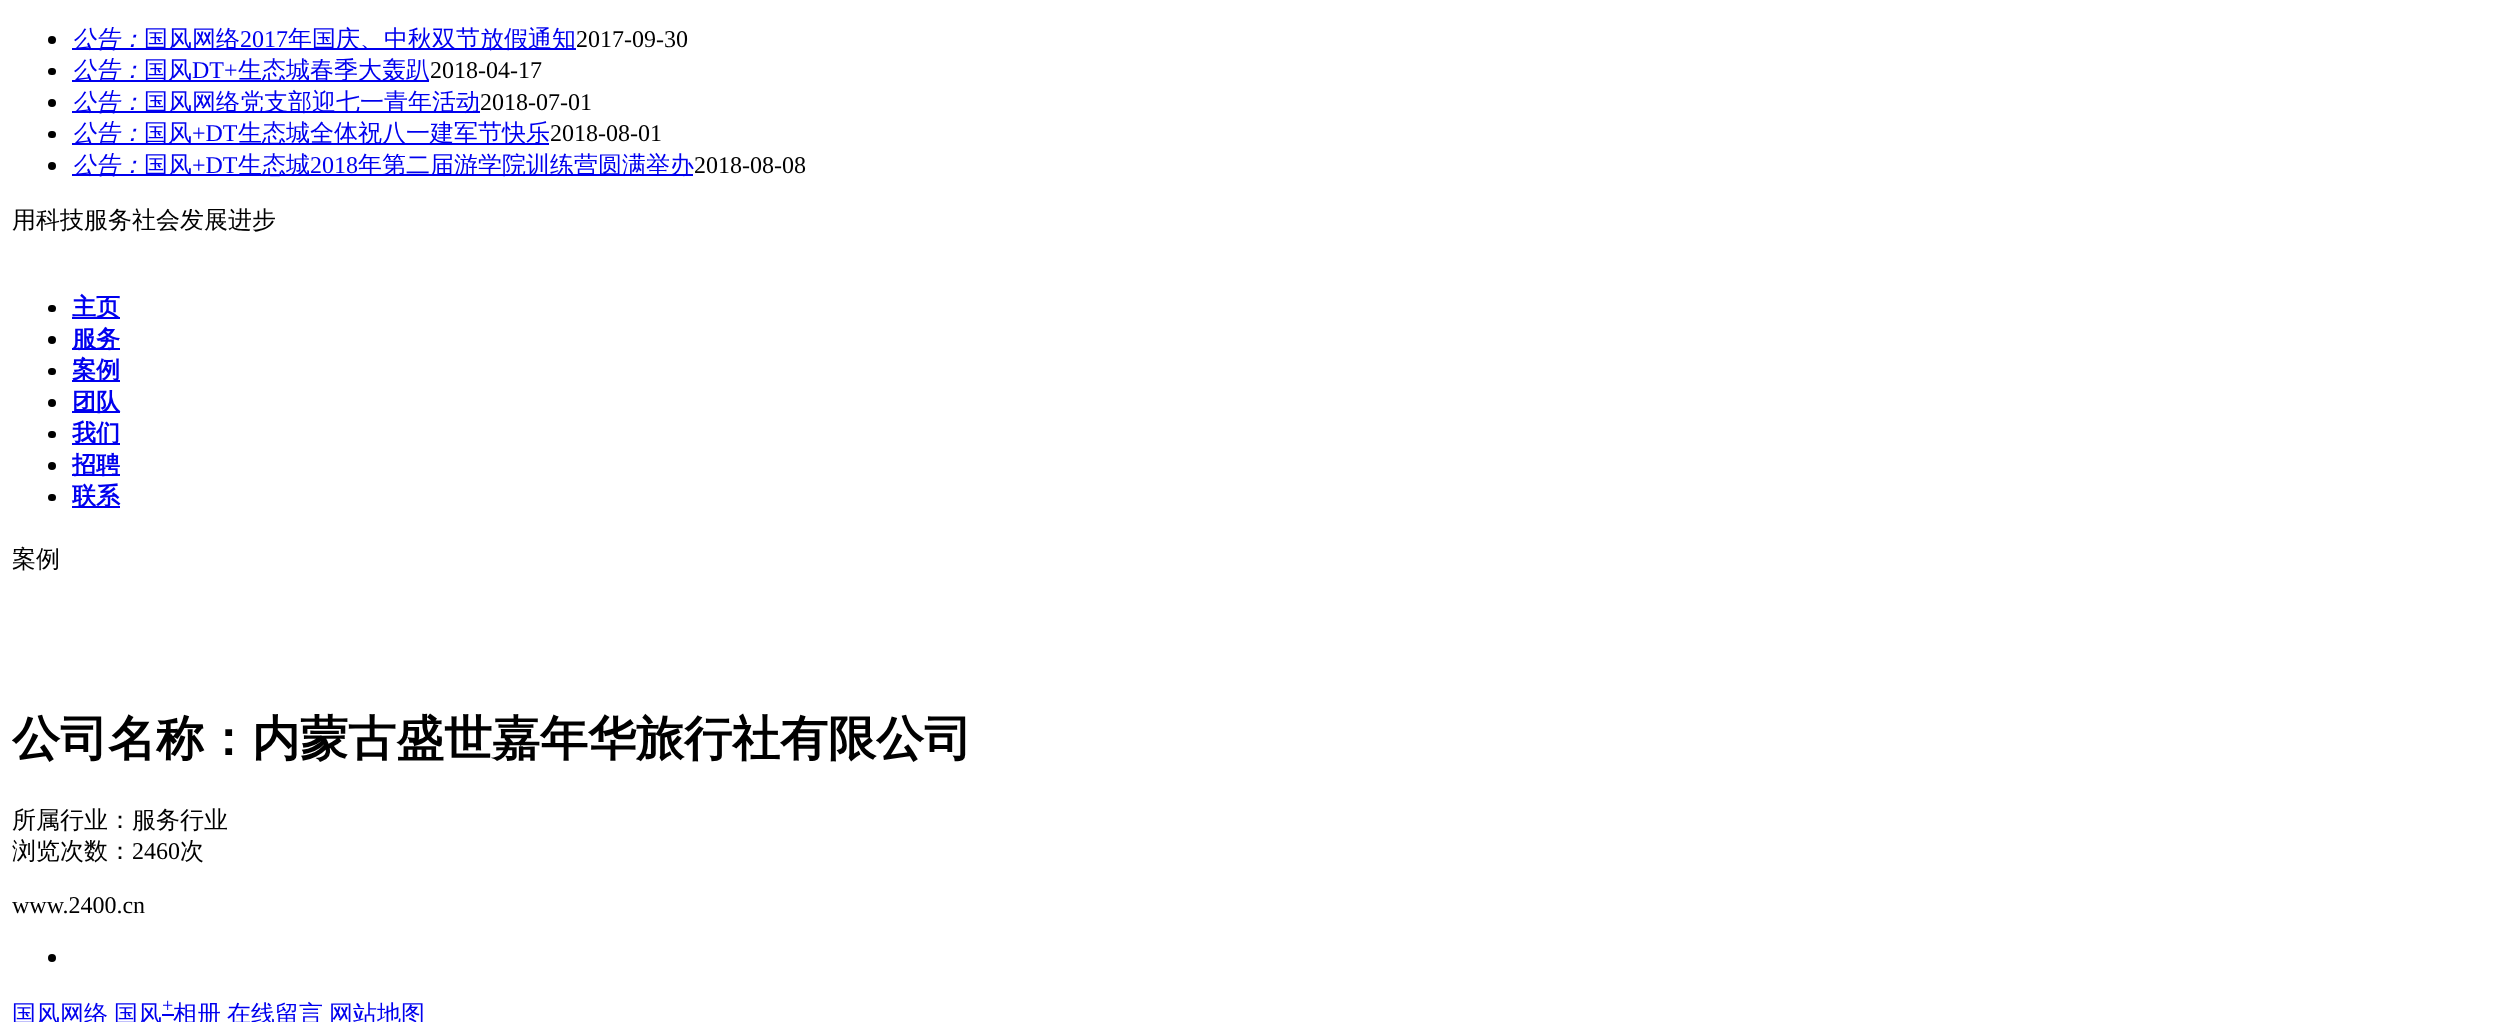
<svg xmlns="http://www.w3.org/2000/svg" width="2499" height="1022">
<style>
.a{font:italic 500 24px WenQuanYi Zen Hei;fill:#00e}
.b{font:500 24px WenQuanYi Zen Hei;fill:#00e}
.c{font:24px Liberation Serif;fill:#00e}
.d{font:24px Liberation Serif;fill:#000}
.e{font:500 24px WenQuanYi Zen Hei;fill:#000}
.f{font:bold 24px WenQuanYi Zen Hei;fill:#00e}
.g{font:bold 48px WenQuanYi Zen Hei;fill:#000}
.h{font:20px Liberation Serif;fill:#00e}
</style>
<rect width="100%" height="100%" fill="#fff"/>
<circle fill="#000" cx="52" cy="40" r="4"/>
<path fill="#00e" d="M72 48h504v2H72z"/>
<rect fill="#000" x="48" y="68" width="8" height="7" rx="3.5"/>
<path fill="#00e" d="M72 80h357v2H72z"/>
<circle fill="#000" cx="52" cy="103" r="4"/>
<path fill="#00e" d="M72 111h408v2H72z"/>
<rect fill="#000" x="48" y="131" width="8" height="7" rx="3.5"/>
<path fill="#00e" d="M72 143h477v2H72z"/>
<circle fill="#000" cx="52" cy="166" r="4"/>
<path fill="#00e" d="M72 174h621v2H72z"/>
<rect fill="#000" x="48" y="305" width="8" height="7" rx="3.5"/>
<path fill="#00e" d="M72 317h48v2H72z"/>
<circle fill="#000" cx="52" cy="340" r="4"/>
<path fill="#00e" d="M72 348h48v2H72z"/>
<rect fill="#000" x="48" y="368" width="8" height="7" rx="3.5"/>
<path fill="#00e" d="M72 380h48v2H72z"/>
<circle fill="#000" cx="52" cy="403" r="4"/>
<path fill="#00e" d="M72 411h48v2H72z"/>
<rect fill="#000" x="48" y="431" width="8" height="7" rx="3.5"/>
<path fill="#00e" d="M72 443h48v2H72z"/>
<circle fill="#000" cx="52" cy="466" r="4"/>
<path fill="#00e" d="M72 474h48v2H72z"/>
<rect fill="#000" x="48" y="494" width="8" height="7" rx="3.5"/>
<path fill="#00e" d="M72 506h48v2H72z"/>
<circle fill="#000" cx="52" cy="958" r="4"/>
<path fill="#00e" d="M162 1014h12v2H162z"/>
<text class="a" x="72" y="47">公告：</text>
<text class="b" x="144" y="47">国风网络</text>
<text class="c" x="240" y="47">2017</text>
<text class="b" x="288" y="47">年国庆、中秋双节放假通知</text>
<text class="d" x="576" y="47">2017-09-30</text>
<text class="a" x="72" y="78">公告：</text>
<text class="b" x="144" y="78">国风</text>
<text class="c" x="192" y="78">DT+</text>
<text class="b" x="238" y="78">生态城春季大轰趴</text>
<text class="d" x="430" y="78">2018-04-17</text>
<text class="a" x="72" y="110">公告：</text>
<text class="b" x="144" y="110">国风网络党支部迎七一青年活动</text>
<text class="d" x="480" y="110">2018-07-01</text>
<text class="a" x="72" y="141">公告：</text>
<text class="b" x="144" y="141">国风</text>
<text class="c" x="192" y="141">+DT</text>
<text class="b" x="238" y="141">生态城全体祝八一建军节快乐</text>
<text class="d" x="550" y="141">2018-08-01</text>
<text class="a" x="72" y="173">公告：</text>
<text class="b" x="144" y="173">国风</text>
<text class="c" x="192" y="173">+DT</text>
<text class="b" x="238" y="173">生态城</text>
<text class="c" x="310" y="173">2018</text>
<text class="b" x="358" y="173">年第二届游学院训练营圆满举办</text>
<text class="d" x="694" y="173">2018-08-08</text>
<text class="e" x="12" y="228">用科技服务社会发展进步</text>
<text class="f" x="72" y="315">主页</text>
<text class="f" x="72" y="347">服务</text>
<text class="f" x="72" y="378">案例</text>
<text class="f" x="72" y="410">团队</text>
<text class="f" x="72" y="441">我们</text>
<text class="f" x="72" y="473">招聘</text>
<text class="f" x="72" y="504">联系</text>
<text class="e" x="12" y="567">案例</text>
<text class="g" x="12" y="755">公司名称：内蒙古盛世嘉年华旅行社有限公司</text>
<text class="e" x="12" y="828">所属行业：服务行业</text>
<text class="e" x="12" y="859">浏览次数：</text>
<text class="d" x="132" y="859">2460</text>
<text class="e" x="180" y="859">次</text>
<text class="d" x="12" y="913">www.2400.cn</text>
<text class="b" x="12" y="1022">国风网络</text>
<text class="b" x="114" y="1022">国风</text>
<text class="h" x="162" y="1012">+</text>
<text class="b" x="173" y="1022">相册</text>
<text class="b" x="227" y="1022">在线留言</text>
<text class="b" x="329" y="1022">网站地图</text>
</svg>
